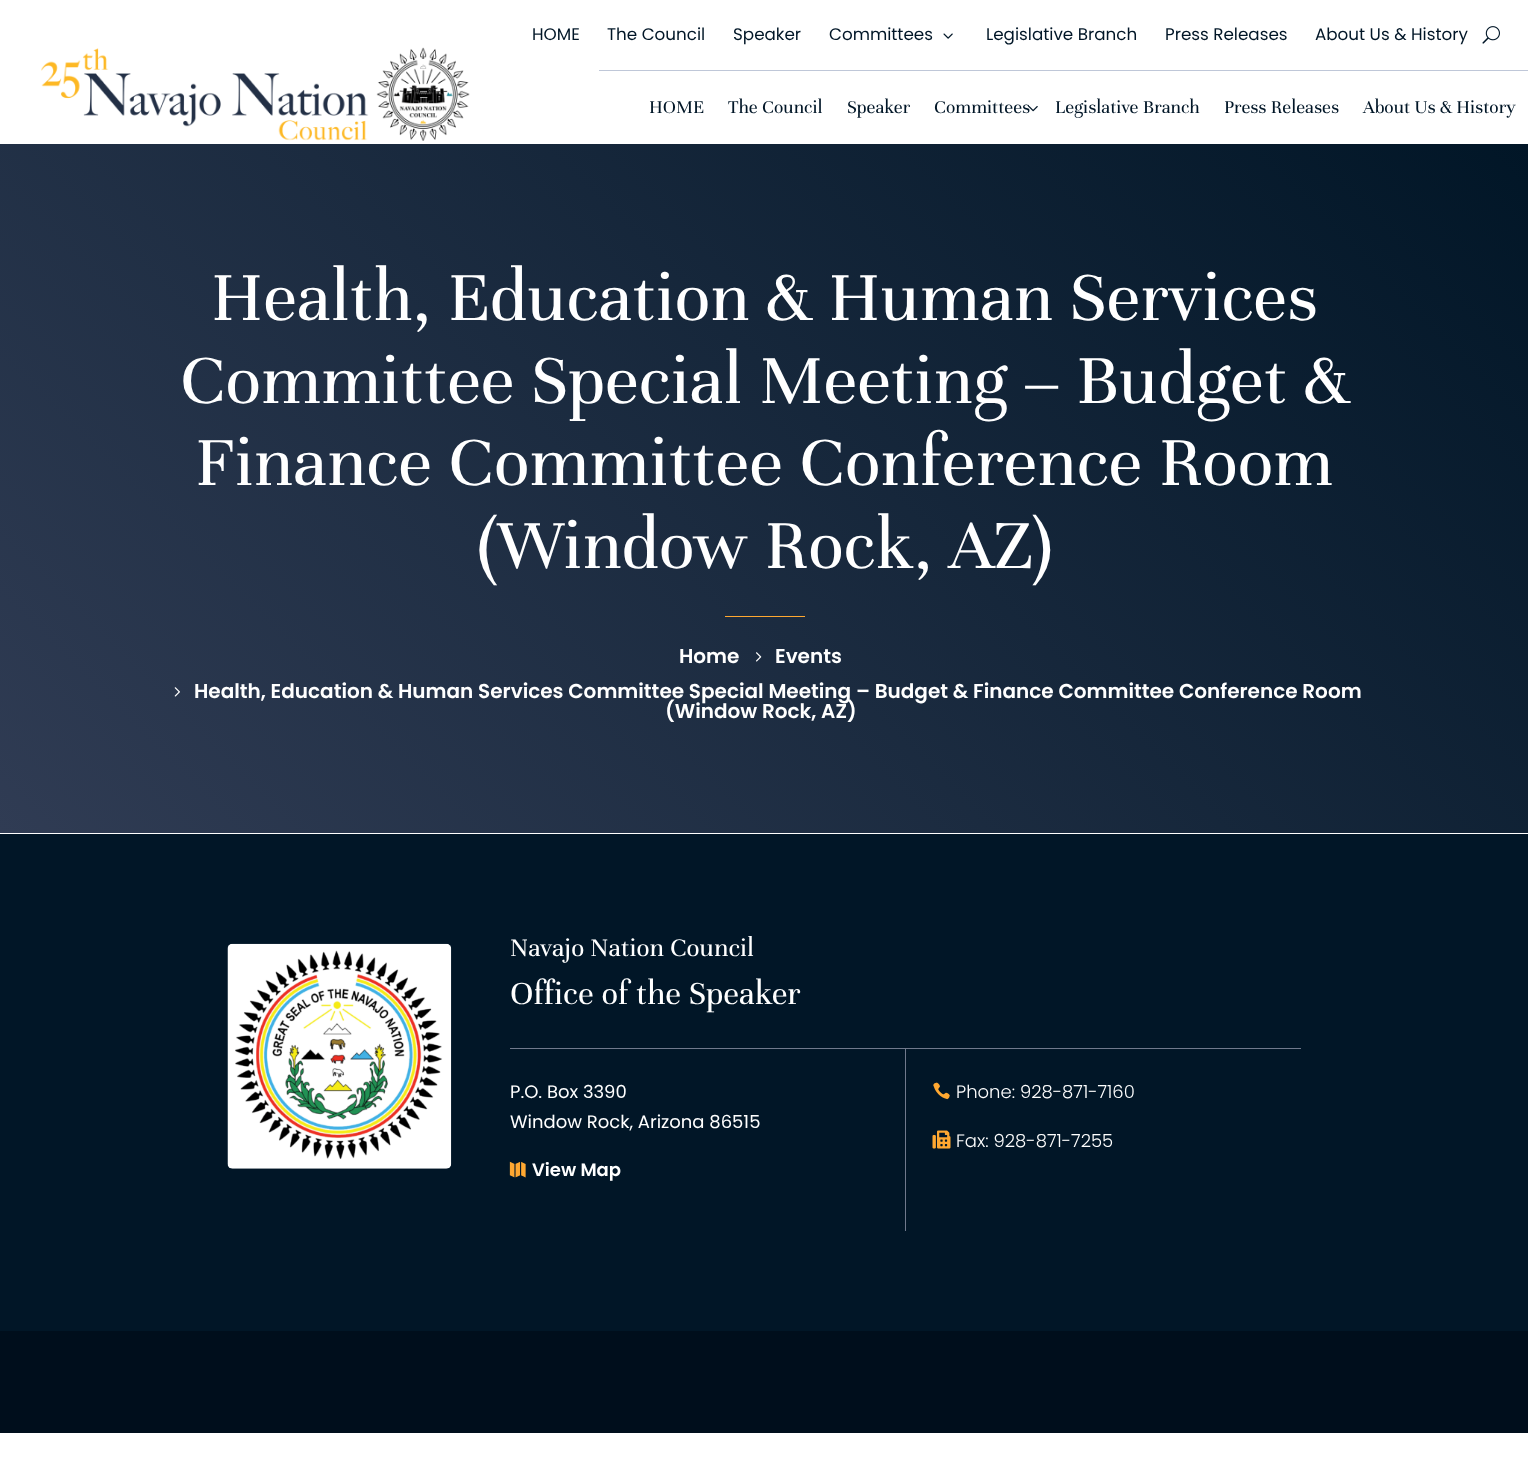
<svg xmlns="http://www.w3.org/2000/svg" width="1528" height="1479">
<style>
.a{font:16.75px Poppins;fill:#011627}
.b{font:19.75px Unna;fill:#011627}
.c{font:75px Unna;fill:#fff}
.d{font:600 20px Poppins;fill:#fff}
.e{font:27.5px Unna;fill:#fff}
.f{font:35px Unna;fill:#fff}
.g{font:18px Poppins;fill:#fff}
.h{font:600 18px Poppins;fill:#fff}
.i{font:300 18px Poppins;fill:#fff}
</style>
<defs>
<linearGradient id="g1" gradientUnits="userSpaceOnUse" x1="210" y1="1043" x2="1319" y2="-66"><stop offset="0" stop-color="#303c54"/><stop offset="1" stop-color="#011627"/></linearGradient>
</defs>
<rect width="100%" height="100%" fill="#fff"/>
<image href="1.png" x="41" y="47" width="429" height="94"/>
<image href="2.png" x="943" y="33" width="10" height="6"/>
<image href="3.png" x="1482" y="26" width="18" height="18"/>
<path fill="#bfc7d8" d="M599 70h929v1H599z"/>
<path fill="url(#g1)" d="M0 144h1528v689H0z"/>
<path fill="#ffa831" d="M725 616h80v1H725z"/>
<image href="5.png" x="756" y="652" width="6" height="10"/>
<image href="6.png" x="174" y="687" width="6" height="10"/>
<path fill="#011627" d="M0 834h1528v497H0z"/>
<image href="7.png" x="227" y="943" width="225" height="226"/>
<path fill="#70798c" d="M510 1048h791v1H510z"/>
<path fill="#70798c" d="M905 1049h1v182H905z"/>
<image href="8.png" x="509" y="1161" width="17" height="17"/>
<image href="9.png" x="933" y="1082" width="17" height="18"/>
<image href="10.png" x="932" y="1130" width="19" height="19"/>
<path fill="#000e1c" d="M0 1331h1528v102H0z"/>
<text class="a" x="532" y="40">HOME</text>
<text class="a" x="607" y="40">The Council</text>
<text class="a" x="733" y="40">Speaker</text>
<text class="a" x="829" y="40">Committees</text>
<text class="a" x="986" y="40">Legislative Branch</text>
<text class="a" x="1165" y="40">Press Releases</text>
<text class="a" x="1315" y="40">About Us &amp; History</text>
<text class="b" x="649" y="113">HOME</text>
<text class="b" x="728" y="113">The Council</text>
<text class="b" x="847" y="113">Speaker</text>
<text class="b" x="934" y="113">Committees</text>
<image href="4.png" x="1028" y="106" width="10" height="6"/>
<text class="b" x="1055" y="113">Legislative Branch</text>
<text class="b" x="1224" y="113">Press Releases</text>
<text class="b" x="1363" y="113">About Us &amp; History</text>
<text class="c" x="211" y="320">Health, Education &amp; Human Services</text>
<text class="c" x="180" y="403">Committee Special Meeting – Budget &amp;</text>
<text class="c" x="195" y="485">Finance Committee Conference Room</text>
<text class="c" x="478" y="568">(Window Rock, AZ)</text>
<text class="d" x="679" y="663">Home</text>
<text class="d" x="775" y="663">Events</text>
<text class="d" x="194" y="698">Health, Education &amp; Human Services Committee Special Meeting – Budget &amp; Finance Committee Conference Room</text>
<text class="d" x="665" y="718">(Window Rock, AZ)</text>
<text class="e" x="510" y="956">Navajo Nation Council</text>
<text class="f" x="510" y="1004">Office of the Speaker</text>
<text class="g" x="510" y="1098">P.O. Box 3390</text>
<text class="g" x="510" y="1128">Window Rock, Arizona 86515</text>
<text class="h" x="532" y="1176">View Map</text>
<text class="i" x="956" y="1098">Phone: 928-871-7160</text>
<text class="i" x="956" y="1147">Fax: 928-871-7255</text>
</svg>
